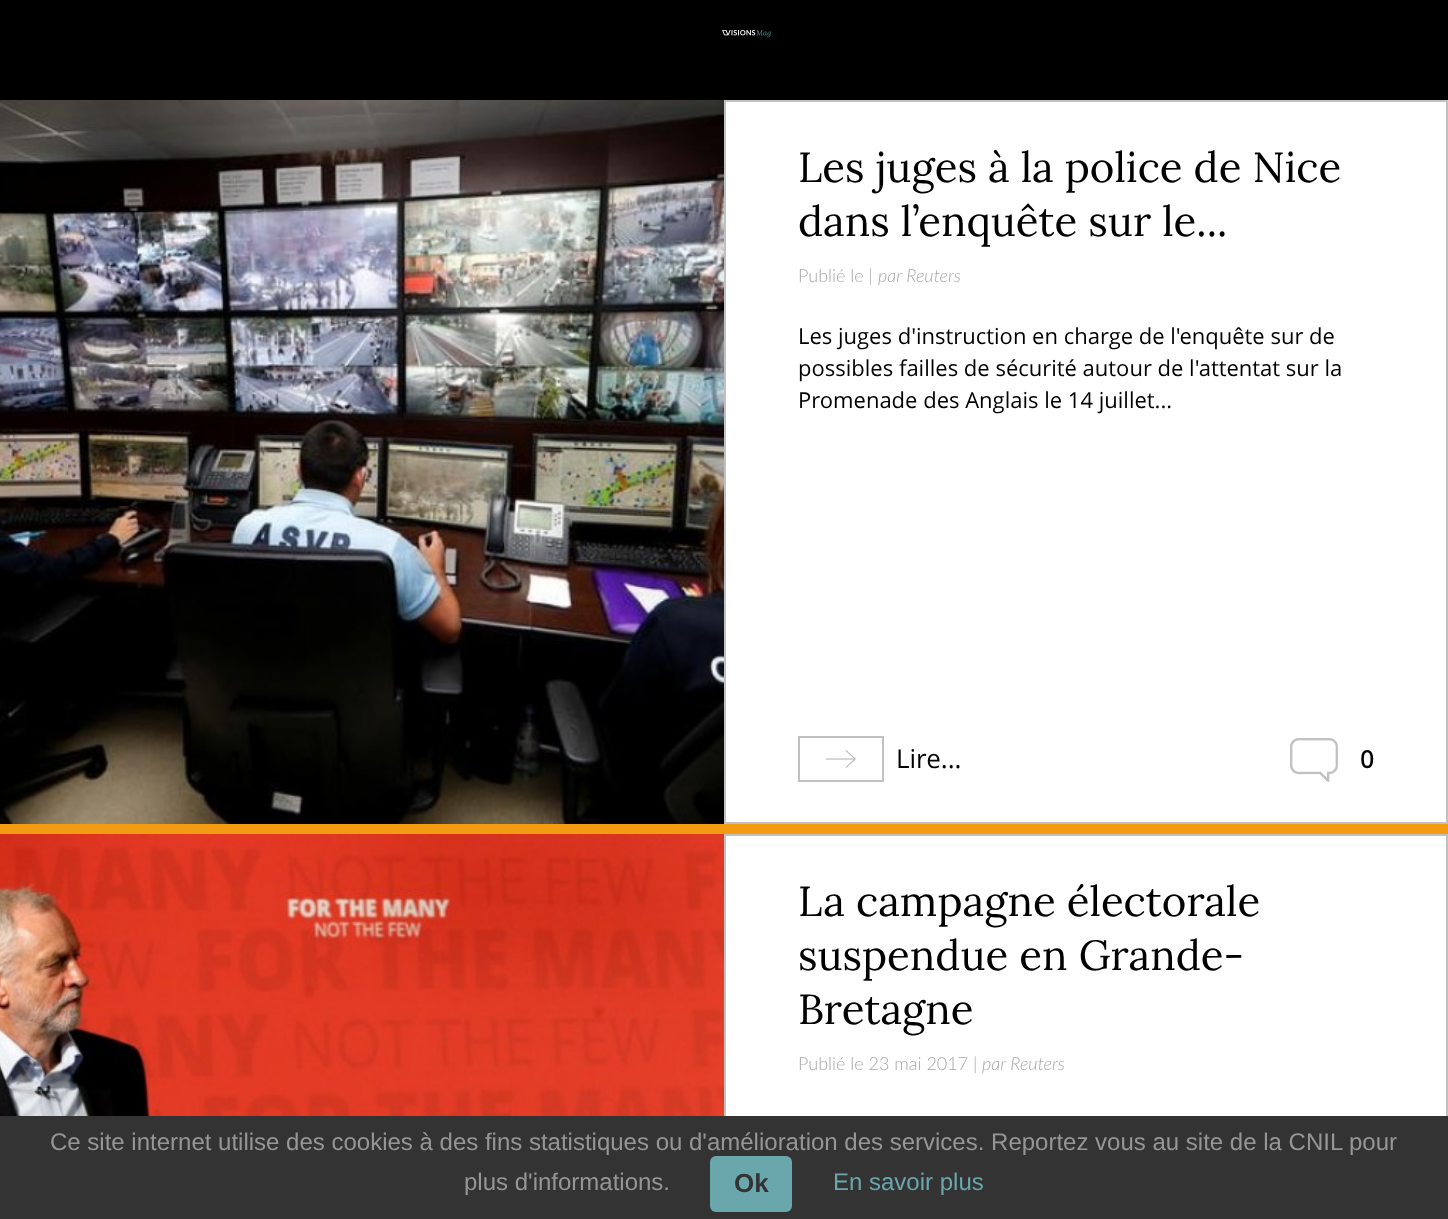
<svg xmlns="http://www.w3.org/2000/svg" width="1448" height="1219">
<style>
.a{font:42px Lora;fill:#000}
.b{font:300 18px Lato;fill:#a7a7a7}
.c{font:italic 300 18px Lato;fill:#a7a7a7}
.d{font:22px Open Sans;fill:#000}
.e{font:26px Open Sans;fill:#000}
.f{font:bold 24px Open Sans;fill:#000}
.g{font:24px Liberation Sans;fill:#969696}
.h{font:bold 26px Liberation Sans;fill:#333}
.i{font:24px Liberation Sans;fill:#6aa7ad}
</style>
<rect width="100%" height="100%" fill="#fff"/>
<path fill="#000" d="M0 0h1448v100H0z"/>
<image href="1.png" x="722" y="30" width="49" height="8"/>
<path fill="#f39c12" d="M0 824h1448v10H0z"/>
<image href="2.png" x="0" y="100" width="724" height="724"/>
<path fill="none" stroke="#c1c1c1" stroke-width="2" d="M725 101h722v722H725z"/>
<path fill="none" stroke="#c1c1c1" stroke-width="2" d="M799 737h84v44H799z"/>
<image href="3.png" x="826" y="750" width="30" height="18"/>
<image href="4.png" x="1290" y="738" width="48" height="44"/>
<image href="5.png" x="0" y="834" width="724" height="282"/>
<path fill="none" stroke="#c1c1c1" stroke-width="2" d="M725 835h722v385H725z"/>
<path fill="#333" d="M0 1116h1448v103H0z"/>
<rect fill="#6aa7ad" x="710" y="1156" width="82" height="56" rx="6"/>
<text class="a" x="798" y="182">Les juges à la police de Nice</text>
<text class="a" x="798" y="236">dans l’enquête sur le...</text>
<text class="b" x="798" y="282">Publié le |</text>
<text class="c" x="878" y="282">par Reuters</text>
<text class="d" x="798" y="344">Les juges d'instruction en charge de l'enquête sur de</text>
<text class="d" x="798" y="376">possibles failles de sécurité autour de l'attentat sur la</text>
<text class="d" x="798" y="408">Promenade des Anglais le 14 juillet...</text>
<text class="e" x="896" y="768">Lire...</text>
<text class="f" x="1360" y="768">0</text>
<text class="a" x="798" y="916">La campagne électorale</text>
<text class="a" x="798" y="970">suspendue en Grande-</text>
<text class="a" x="798" y="1024">Bretagne</text>
<text class="b" x="798" y="1070">Publié le 23 mai 2017 |</text>
<text class="c" x="982" y="1070">par Reuters</text>
<text class="g" x="50" y="1150">Ce site internet utilise des cookies à des fins statistiques ou d'amélioration des services. Reportez vous au site de la CNIL pour</text>
<text class="g" x="464" y="1190">plus d'informations.</text>
<text class="h" x="734" y="1192">Ok</text>
<text class="i" x="833" y="1190">En savoir plus</text>
</svg>
